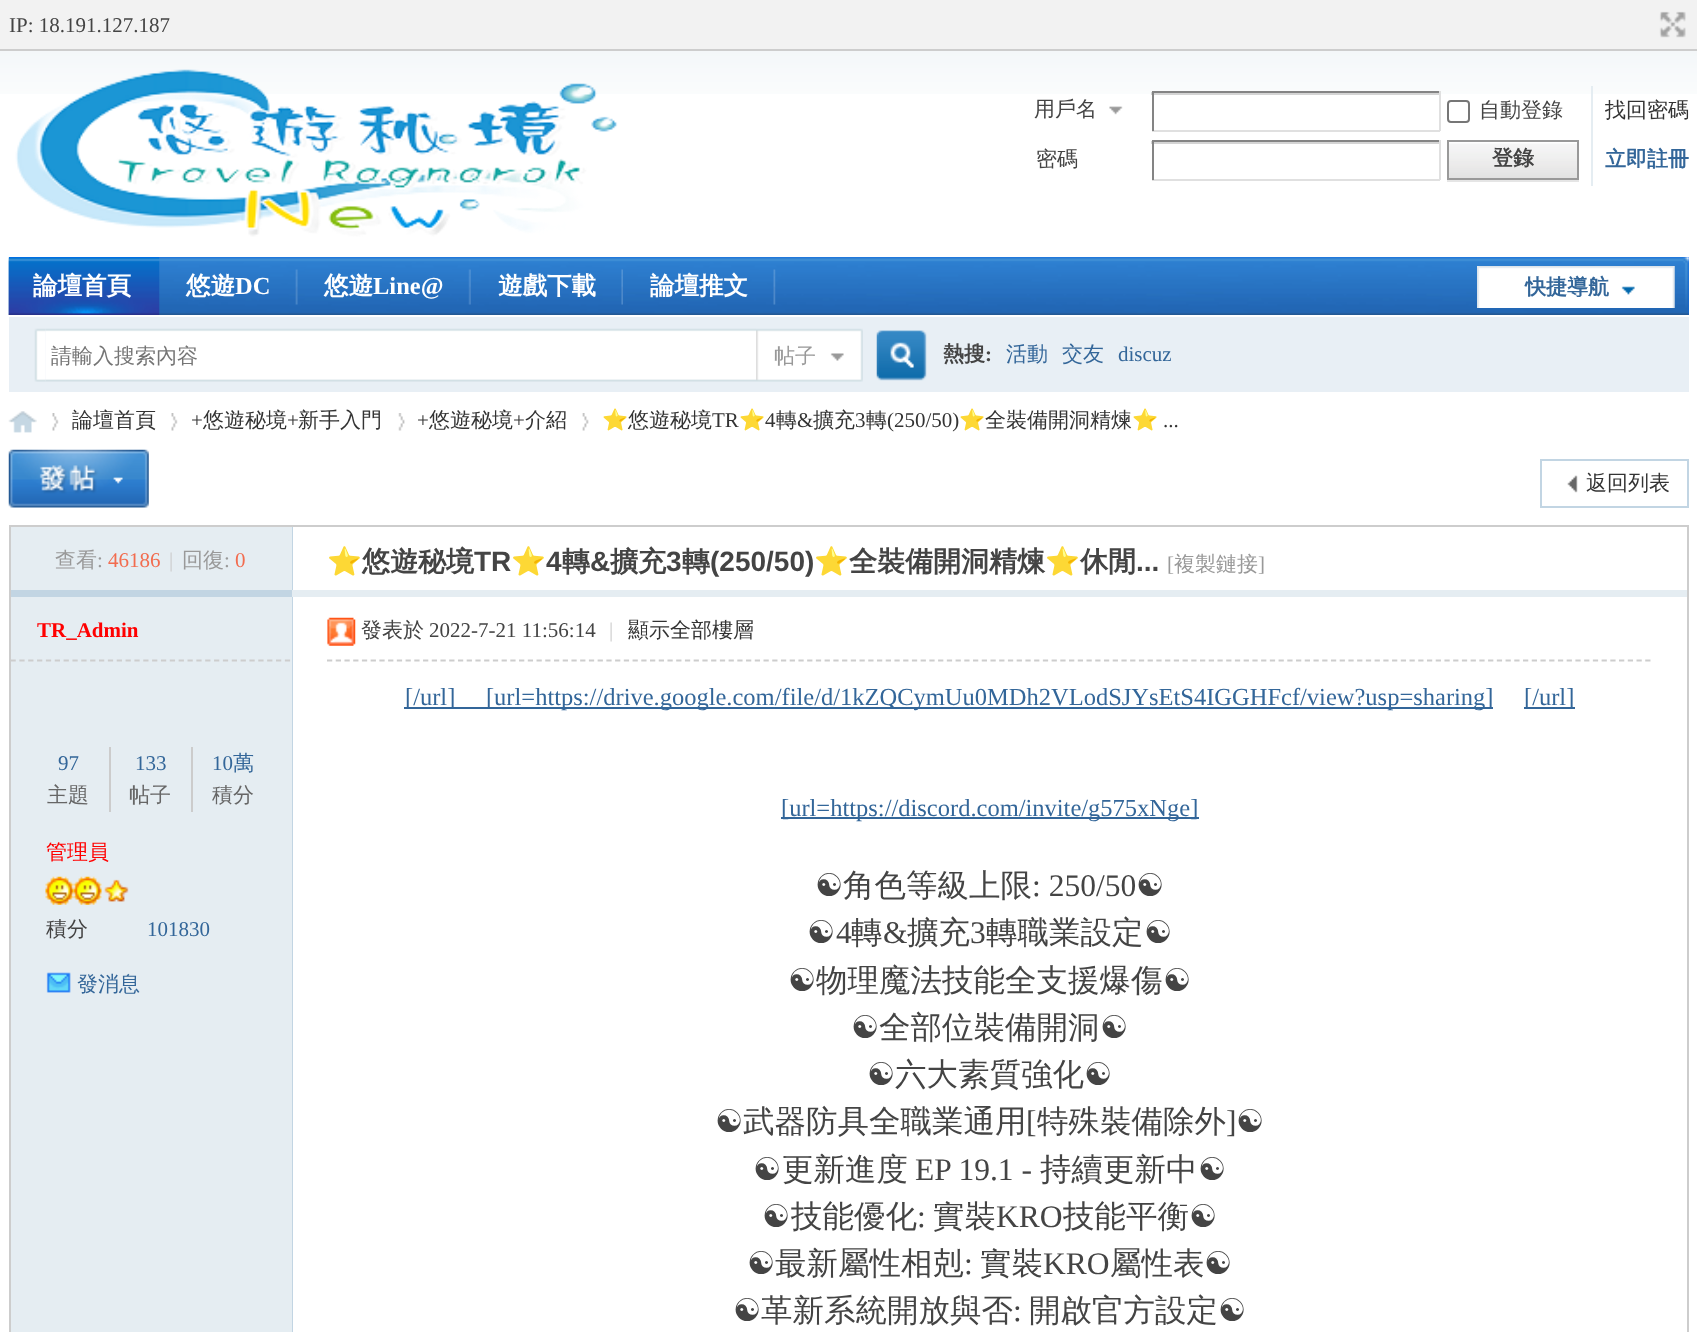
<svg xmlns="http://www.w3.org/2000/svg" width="1697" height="1332">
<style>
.a{font:21px Liberation Serif;fill:#444}
.b{font:500 21px WenQuanYi Zen Hei;fill:#444}
.c{font:500 21px WenQuanYi Zen Hei;fill:#333}
.d{font:bold 21px WenQuanYi Zen Hei;fill:#444}
.e{font:bold 21px WenQuanYi Zen Hei;fill:#369}
.f{font:bold 24.5px WenQuanYi Zen Hei;fill:#fff}
.g{font:bold 24.5px Liberation Serif;fill:#fff}
.h{font:500 21px WenQuanYi Zen Hei;fill:#757575}
.i{font:500 21px WenQuanYi Zen Hei;fill:#999}
.j{font:bold 21px Liberation Serif;fill:#444}
.k{font:500 21px WenQuanYi Zen Hei;fill:#369}
.l{font:21px Liberation Serif;fill:#369}
.m{font:21px Liberation Serif;fill:#333}
.n{font:21px Noto Color Emoji;fill:#333}
.o{font:21px Liberation Serif;fill:#999}
.p{font:21px Liberation Serif;fill:#f26c4f}
.q{font:21px Liberation Serif;fill:#ccc}
.r{font:bold 28px Noto Color Emoji;fill:#444}
.s{font:bold 28px WenQuanYi Zen Hei;fill:#444}
.t{font:bold 28px Liberation Sans;fill:#444}
.u{font:bold 21px Liberation Serif;fill:#f00}
.v{font:500 21px WenQuanYi Zen Hei;fill:#666}
.w{font:500 21px WenQuanYi Zen Hei;fill:#f00}
.x{font:24.5px Liberation Serif;fill:#369}
.y{font:31.5px DejaVu Sans;fill:#444}
.z{font:500 31.5px WenQuanYi Zen Hei;fill:#444}
.a1{font:31.5px Liberation Serif;fill:#444}
</style>
<defs>
<clipPath id="clip1"><path d="M11 597h280v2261H11z"/></clipPath>
</defs>
<rect width="100%" height="100%" fill="#fff"/>
<image href="1.png" x="0" y="51" width="1697" height="43"/>
<path fill="#f2f2f2" d="M0 0h1697v49H0z"/>
<path fill="#cdcdcd" d="M0 49h1697v2H0z"/>
<image href="2.png" x="1659" y="11" width="27" height="27"/>
<image href="3.png" x="15" y="69" width="603" height="168"/>
<image href="4.png" x="1109" y="106" width="14" height="9"/>
<path fill="#d4d4d4" d="M1151 92h290v3H1151z"/>
<path fill="#848484" d="M1152 91h288v2H1152z"/>
<path fill="#e0e0e0" d="M1439 91h2v40H1439z"/>
<path fill="#e0e0e0" d="M1152 130h288v2H1152z"/>
<path fill="#848484" d="M1152 91h2v40H1152z"/>
<rect fill="none" stroke="#767676" stroke-width="2" x="1448" y="101" width="21" height="21" rx="3"/>
<path fill="#d4d4d4" d="M1151 141h290v3H1151z"/>
<path fill="#848484" d="M1152 140h288v2H1152z"/>
<path fill="#e0e0e0" d="M1439 140h2v40H1439z"/>
<path fill="#e0e0e0" d="M1152 179h288v2H1152z"/>
<path fill="#848484" d="M1152 140h2v40H1152z"/>
<path fill="#e5edf2" d="M1591 86h2v100H1591z"/>
<path fill="#e5e5e5" d="M1447 142v40h132v-40h-1v38h-131z"/>
<image href="5.png" x="1449" y="142" width="128" height="36"/>
<path fill="none" stroke="#999" stroke-width="2" d="M1448 141h130v38H1448z"/>
<path fill="#06f" d="M159 257h1530v58H159z"/>
<image href="6.png" x="8" y="257" width="1681" height="58"/>
<path fill="#06f" d="M9 257h150v1H9z"/>
<image href="7.png" x="8" y="257" width="152" height="58"/>
<image href="8.png" x="295" y="269" width="3" height="36"/>
<image href="9.png" x="468" y="269" width="3" height="36"/>
<image href="10.png" x="621" y="269" width="2" height="36"/>
<image href="11.png" x="773" y="269" width="3" height="36"/>
<image href="12.png" x="1477" y="266" width="198" height="42"/>
<path fill="#e8eff5" d="M9 317h1680v75H9z"/>
<image href="13.png" x="34" y="328" width="12" height="54"/>
<image href="14.png" x="45" y="328" width="711" height="54"/>
<image href="15.png" x="756" y="328" width="107" height="54"/>
<image href="16.png" x="876" y="330" width="51" height="51"/>
<image href="17.png" x="8" y="411" width="29" height="22"/>
<image href="18.png" x="52" y="413" width="7" height="18"/>
<image href="18.png" x="171" y="413" width="7" height="18"/>
<image href="19.png" x="398" y="413" width="7" height="18"/>
<image href="20.png" x="582" y="413" width="7" height="18"/>
<image href="21.png" x="8" y="449" width="141" height="59"/>
<image href="22.png" x="1567" y="475" width="11" height="18"/>
<path fill="none" stroke="#c2d5e3" stroke-width="2" d="M1541 460h147v47H1541z"/>
<path fill="none" stroke="#cdcdcd" stroke-width="2" d="M10 526h1678v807H10z"/>
<path fill="#c2d5e3" d="M292 527h1v65H292z"/>
<path fill="#e5edf2" d="M11 527h281v63H11z"/>
<path fill="#c2d5e3" d="M11 590h281v7H11z"/>
<path fill="#e5edf2" d="M292 590h1395v7H292z"/>
<path fill="#c2d5e3" d="M292 597h1v735H292z"/>
<path fill="#e5edf2" d="M11 597h281v735H11z"/>
<g clip-path="url(#clip1)">
<path fill="none" stroke="#cdcdcd" stroke-width="1.8" stroke-dasharray="5.25 3.6" d="M10.5 660.5h280"/>
</g>
<path fill="#ccc" d="M109 747h2v65H109z"/>
<path fill="#ccc" d="M191 747h2v65H191z"/>
<image href="23.png" x="45" y="876" width="29" height="29"/>
<image href="24.png" x="73" y="876" width="29" height="29"/>
<image href="25.png" x="104" y="879" width="25" height="23"/>
<image href="26.png" x="46" y="972" width="25" height="21"/>
<path fill="none" stroke="#cdcdcd" stroke-width="1.8" stroke-dasharray="5.25 3.48" d="M327 660.5h1325"/>
<image href="27.png" x="327" y="617" width="29" height="29"/>
<path fill="#369" d="M404 707h1089v2H404z"/>
<path fill="#369" d="M1524 707h51v2H1524z"/>
<path fill="#369" d="M781 817h418v2H781z"/>
<text class="a" x="9" y="32">IP: 18.191.127.187</text>
<text class="b" x="1034" y="116">用戶名</text>
<text class="b" x="1479" y="117">自動登錄</text>
<text class="c" x="1605" y="117">找回密碼</text>
<text class="b" x="1036" y="166">密碼</text>
<text class="d" x="1492" y="165">登錄</text>
<text class="e" x="1605" y="166">立即註冊</text>
<text class="f" x="33" y="294">論壇首頁</text>
<text class="f" x="186" y="294">悠遊</text>
<text class="g" x="235" y="294">DC</text>
<text class="f" x="324" y="294">悠遊</text>
<text class="g" x="373" y="294">Line@</text>
<text class="f" x="498" y="294">遊戲下載</text>
<text class="f" x="650" y="294">論壇推文</text>
<text class="e" x="1525" y="294">快捷導航</text>
<text class="h" x="51" y="363">請輸入搜索內容</text>
<text class="i" x="774" y="363">帖子</text>
<text class="d" x="943" y="361">熱搜</text>
<text class="j" x="985" y="361">:</text>
<text class="k" x="1006" y="361">活動</text>
<text class="k" x="1062" y="361">交友</text>
<text class="l" x="1118" y="361">discuz</text>
<text class="c" x="72" y="427">論壇首頁</text>
<text class="m" x="191" y="427">+</text>
<text class="c" x="203" y="427">悠遊秘境</text>
<text class="m" x="287" y="427">+</text>
<text class="c" x="298" y="427">新手入門</text>
<text class="m" x="417" y="427">+</text>
<text class="c" x="429" y="427">悠遊秘境</text>
<text class="m" x="513" y="427">+</text>
<text class="c" x="525" y="427">介紹</text>
<text class="n" x="602" y="427">⭐</text>
<text class="c" x="628" y="427">悠遊秘境</text>
<text class="m" x="712" y="427">TR</text>
<text class="n" x="739" y="427">⭐</text>
<text class="m" x="765" y="427">4</text>
<text class="c" x="776" y="427">轉</text>
<text class="m" x="797" y="427">&amp;</text>
<text class="c" x="813" y="427">擴充</text>
<text class="m" x="855" y="427">3</text>
<text class="c" x="866" y="427">轉</text>
<text class="m" x="887" y="427">(250/50)</text>
<text class="n" x="959" y="427">⭐</text>
<text class="c" x="985" y="427">全裝備開洞精煉</text>
<text class="n" x="1132" y="427">⭐</text>
<text class="m" x="1163" y="427">...</text>
<text class="c" x="1586" y="490">返回列表</text>
<text class="i" x="55" y="567">查看</text>
<text class="o" x="97" y="567">:</text>
<text class="p" x="108" y="567">46186</text>
<text class="q" x="169" y="567">|</text>
<text class="i" x="182" y="567">回復</text>
<text class="o" x="224" y="567">:</text>
<text class="p" x="235" y="567">0</text>
<text class="r" x="327" y="571">⭐</text>
<text class="s" x="362" y="571">悠遊秘境</text>
<text class="t" x="474" y="571">TR</text>
<text class="r" x="511" y="571">⭐</text>
<text class="t" x="546" y="571">4</text>
<text class="s" x="562" y="571">轉</text>
<text class="t" x="590" y="571">&amp;</text>
<text class="s" x="610" y="571">擴充</text>
<text class="t" x="666" y="571">3</text>
<text class="s" x="682" y="571">轉</text>
<text class="t" x="710" y="571">(250/50)</text>
<text class="r" x="814" y="571">⭐</text>
<text class="s" x="849" y="571">全裝備開洞精煉</text>
<text class="r" x="1045" y="571">⭐</text>
<text class="s" x="1080" y="571">休閒</text>
<text class="t" x="1136" y="571">...</text>
<text class="o" x="1167" y="571">[</text>
<text class="i" x="1174" y="571">複製鏈接</text>
<text class="o" x="1258" y="571">]</text>
<text class="u" x="37" y="637">TR_Admin</text>
<text class="l" x="58" y="770">97</text>
<text class="v" x="47" y="802">主題</text>
<text class="l" x="135" y="770">133</text>
<text class="v" x="129" y="802">帖子</text>
<text class="l" x="212" y="770">10</text>
<text class="k" x="233" y="770">萬</text>
<text class="v" x="212" y="802">積分</text>
<text class="w" x="46" y="859">管理員</text>
<text class="b" x="46" y="936">積分</text>
<text class="l" x="147" y="936">101830</text>
<text class="k" x="77" y="991">發消息</text>
<text class="b" x="361" y="637">發表於</text>
<text class="a" x="429" y="637">2022-7-21 11:56:14</text>
<text class="q" x="609" y="637">|</text>
<text class="c" x="628" y="637">顯示全部樓層</text>
<text class="x" xml:space="preserve" x="405" y="705">[/url]     [url=https://drive.google.com/file/d/1kZQCymUu0MDh2VLodSJYsEtS4IGGHFcf/view?usp=sharing]</text>
<text class="x" x="1524" y="705">[/url]</text>
<text class="x" x="781" y="816">[url=https://discord.com/invite/g575xNge]</text>
<text class="y" x="815" y="896">☯</text>
<text class="z" x="843" y="896">角色等級上限</text>
<text class="a1" x="1032" y="896">: 250/50</text>
<text class="y" x="1136" y="896">☯</text>
<text class="y" x="807" y="943">☯</text>
<text class="a1" x="836" y="943">4</text>
<text class="z" x="851" y="943">轉</text>
<text class="a1" x="883" y="943">&amp;</text>
<text class="z" x="907" y="943">擴充</text>
<text class="a1" x="970" y="943">3</text>
<text class="z" x="986" y="943">轉職業設定</text>
<text class="y" x="1144" y="943">☯</text>
<text class="y" x="788" y="991">☯</text>
<text class="z" x="816" y="991">物理魔法技能全支援爆傷</text>
<text class="y" x="1163" y="991">☯</text>
<text class="y" x="851" y="1038">☯</text>
<text class="z" x="879" y="1038">全部位裝備開洞</text>
<text class="y" x="1100" y="1038">☯</text>
<text class="y" x="867" y="1085">☯</text>
<text class="z" x="895" y="1085">六大素質強化</text>
<text class="y" x="1084" y="1085">☯</text>
<text class="y" x="715" y="1132">☯</text>
<text class="z" x="743" y="1132">武器防具全職業通用</text>
<text class="a1" x="1026" y="1132">[</text>
<text class="z" x="1037" y="1132">特殊裝備除外</text>
<text class="a1" x="1226" y="1132">]</text>
<text class="y" x="1236" y="1132">☯</text>
<text class="y" x="753" y="1180">☯</text>
<text class="z" x="782" y="1180">更新進度</text>
<text class="a1" x="915" y="1180">EP 19.1 -</text>
<text class="z" x="1040" y="1180">持續更新中</text>
<text class="y" x="1198" y="1180">☯</text>
<text class="y" x="762" y="1227">☯</text>
<text class="z" x="791" y="1227">技能優化</text>
<text class="a1" x="917" y="1227">:</text>
<text class="z" x="933" y="1227">實裝</text>
<text class="a1" x="996" y="1227">KRO</text>
<text class="z" x="1063" y="1227">技能平衡</text>
<text class="y" x="1189" y="1227">☯</text>
<text class="y" x="747" y="1274">☯</text>
<text class="z" x="775" y="1274">最新屬性相剋</text>
<text class="a1" x="964" y="1274">:</text>
<text class="z" x="980" y="1274">實裝</text>
<text class="a1" x="1043" y="1274">KRO</text>
<text class="z" x="1110" y="1274">屬性表</text>
<text class="y" x="1204" y="1274">☯</text>
<text class="y" x="733" y="1321">☯</text>
<text class="z" x="761" y="1321">革新系統開放與否</text>
<text class="a1" x="1013" y="1321">:</text>
<text class="z" x="1029" y="1321">開啟官方設定</text>
<text class="y" x="1218" y="1321">☯</text>
</svg>
